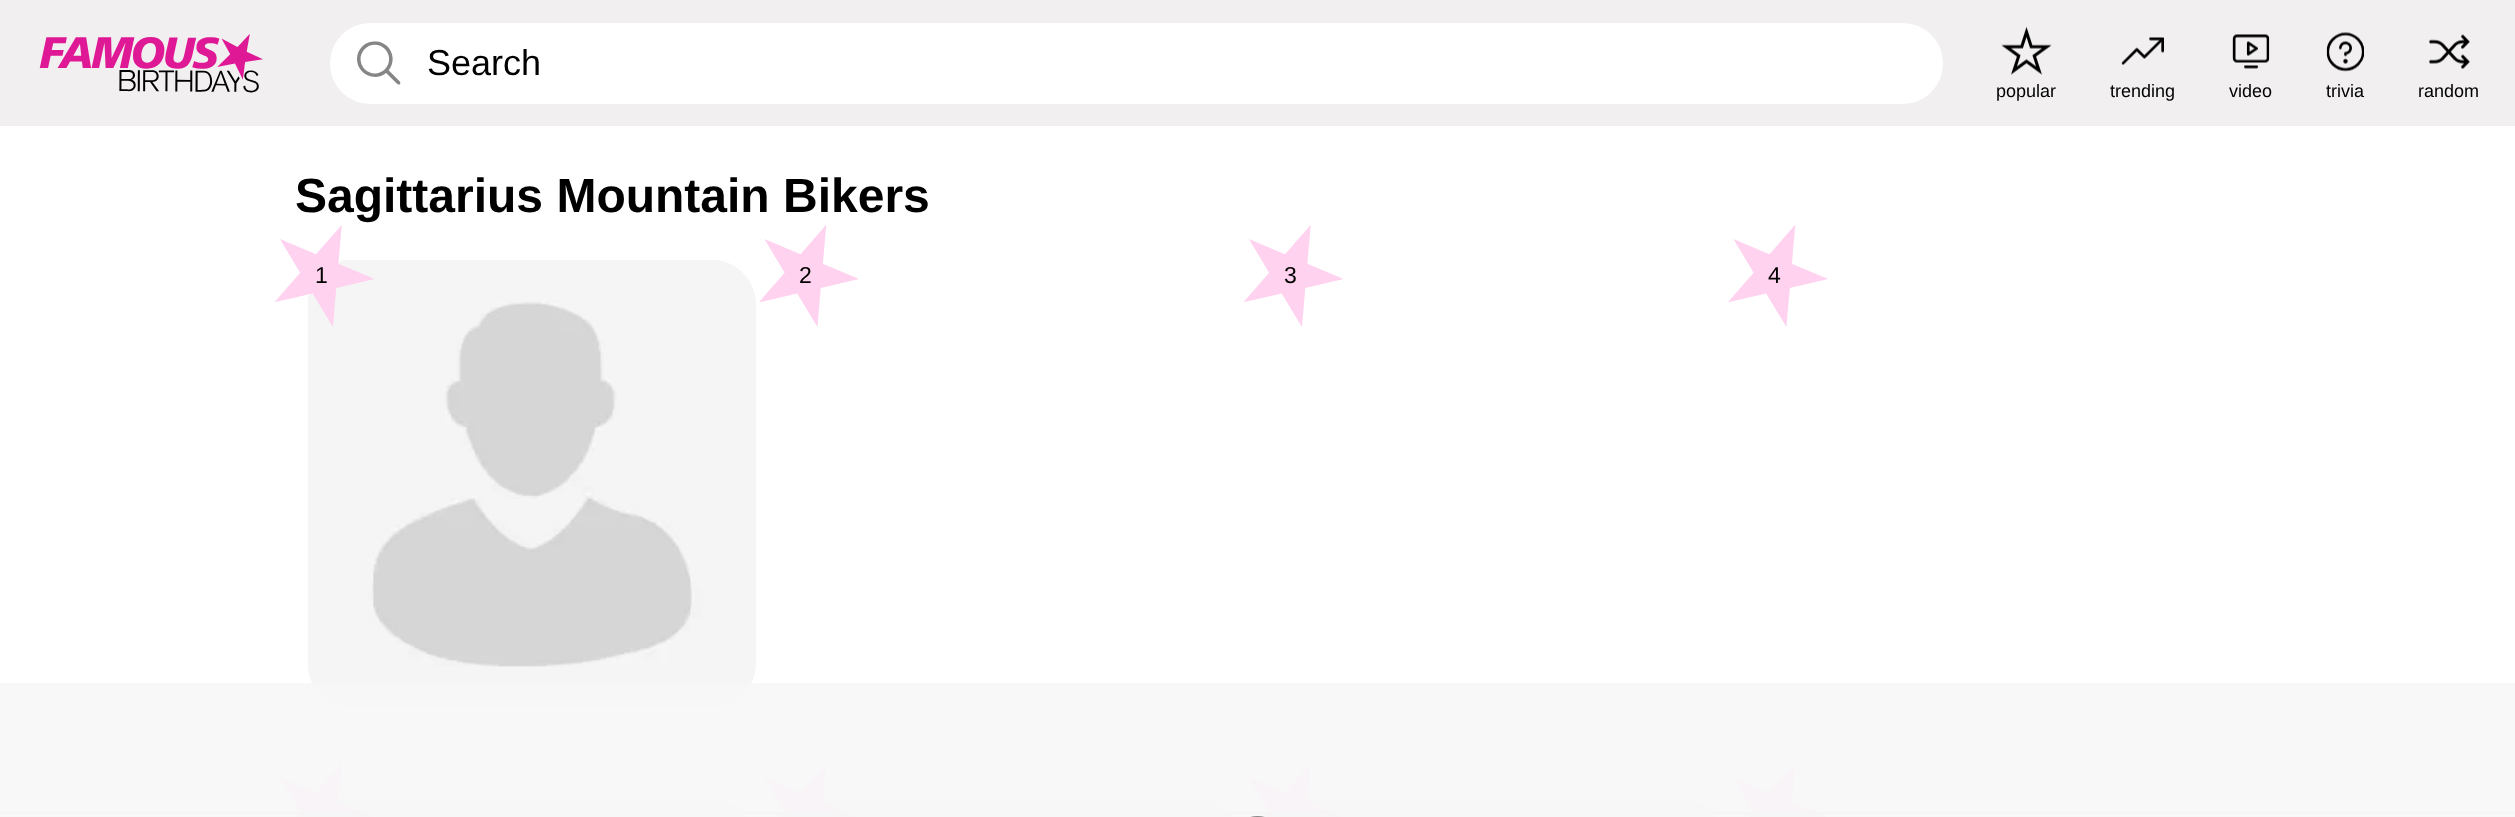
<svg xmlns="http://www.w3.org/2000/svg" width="2515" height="817">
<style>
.a{font:36px Liberation Sans;fill:#000}
.b{font:18px Liberation Sans;fill:#000}
.c{font:bold 48px Liberation Sans;fill:#000}
.d{font:23px Liberation Sans;fill:#000}
</style>
<rect width="100%" height="100%" fill="#fff"/>
<path fill="#f1efef" d="M0 0h2515v126H0z"/>
<image href="1.png" x="39" y="34" width="224" height="59"/>
<rect fill="#fff" stroke="#fff" stroke-width="3" x="331.5" y="24.5" width="1610" height="78" rx="39"/>
<image href="2.png" x="357" y="41" width="44" height="44"/>
<image href="3.png" x="2001" y="26" width="51" height="49"/>
<image href="4.png" x="2121" y="37" width="43" height="28"/>
<image href="5.png" x="2232" y="34" width="38" height="35"/>
<image href="6.png" x="2326" y="32" width="38" height="40"/>
<image href="7.png" x="2429" y="34" width="41" height="35"/>
<image href="8.png" x="308" y="260" width="448" height="448"/>
<image href="9.png" x="275" y="225" width="99" height="102"/>
<image href="10.png" x="759" y="225" width="100" height="102"/>
<image href="11.png" x="1244" y="225" width="99" height="102"/>
<image href="12.png" x="1728" y="225" width="100" height="102"/>
<image href="14.png" x="338" y="798" width="409" height="19"/>
<image href="13.png" x="280" y="763" width="93" height="54"/>
<image href="16.png" x="822" y="798" width="410" height="19"/>
<image href="15.png" x="764" y="763" width="94" height="54"/>
<image href="14.png" x="1307" y="798" width="409" height="19"/>
<image href="17.png" x="1249" y="763" width="93" height="54"/>
<image href="18.png" x="1733" y="763" width="94" height="54"/>
<path fill="#f9f9f959" d="M295 812h1531v5H295z"/>
<path fill="#dededeb3" d="M0 812h2515v2H0z"/>
<path fill="#f7f7f7e6" d="M0 683h2515v134H0z"/>
<rect fill="none" stroke="#888" stroke-width="2" x="1242" y="817" width="31" height="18" rx="15.5"/>
<text class="a" x="427" y="75">Search</text>
<text class="b" x="1996" y="97">popular</text>
<text class="b" x="2110" y="97">trending</text>
<text class="b" x="2229" y="97">video</text>
<text class="b" x="2326" y="97">trivia</text>
<text class="b" x="2418" y="97">random</text>
<text class="c" x="295" y="212">Sagittarius Mountain Bikers</text>
<text class="d" x="315" y="283">1</text>
<text class="d" x="799" y="283">2</text>
<text class="d" x="1284" y="283">3</text>
<text class="d" x="1768" y="283">4</text>
</svg>
